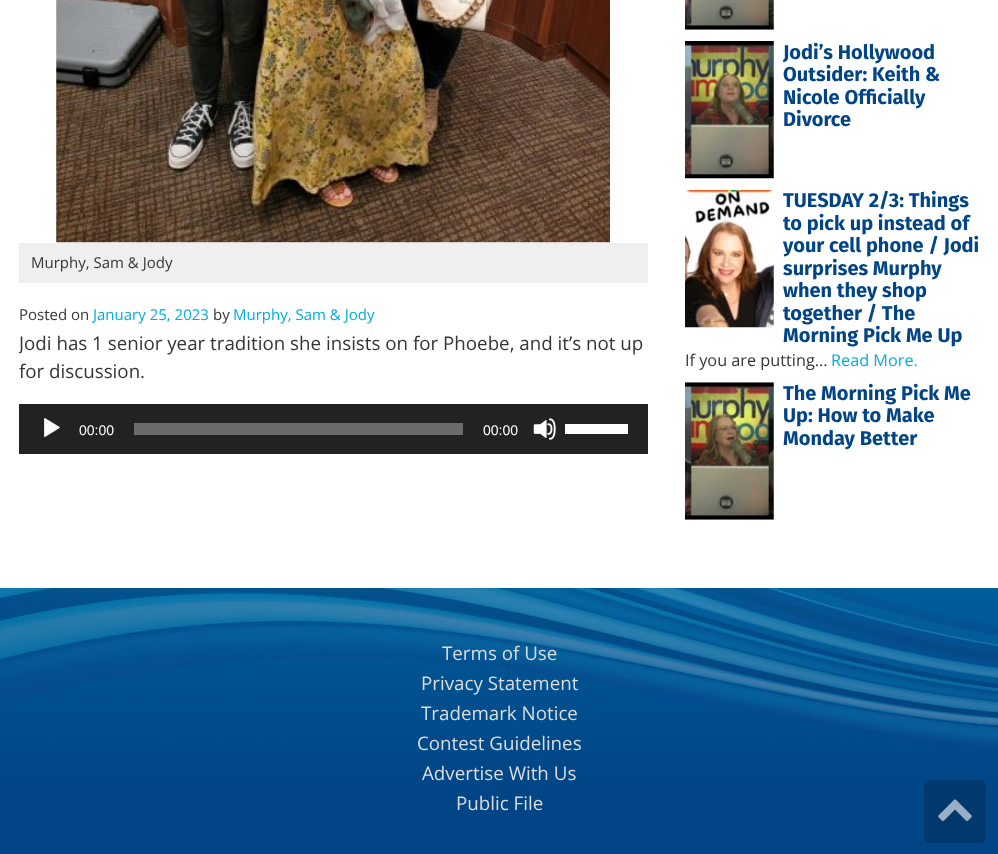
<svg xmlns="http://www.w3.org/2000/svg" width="998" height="854">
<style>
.a{font:15px Open Sans;fill:#353535}
.b{font:15px Open Sans;fill:#01addd}
.c{font:18.75px Open Sans;fill:#353535}
.d{font:14px Liberation Sans;fill:#fff}
.e{font:bold 20px Fira Sans;fill:#014586}
.f{font:16.25px Open Sans;fill:#353535}
.g{font:16.25px Open Sans;fill:#01addd}
.h{font:18.75px Open Sans;fill:#ddd}
</style>
<defs>
<clipPath id="clip1"><path d="M19 0h629v454H19z"/></clipPath>
</defs>
<rect width="100%" height="100%" fill="#fff"/>
<image href="1.png" x="0" y="588" width="998" height="266"/>
<image href="2.png" x="56" y="0" width="554" height="243"/>
<path fill="#efefef" d="M19 243h629v40H19z"/>
<path fill="#222" d="M19 404h629v50H19z"/>
<image href="3.png" x="44" y="418" width="16" height="19"/>
<path fill="#6b6b6b" d="M134 423h329v12H134z"/>
<image href="4.png" x="533" y="418" width="23" height="22"/>
<path fill="#fff" d="M565 424h63v10H565z"/>
<image href="5.png" x="685" y="0" width="89" height="30"/>
<image href="6.png" x="685" y="41" width="89" height="138"/>
<image href="7.png" x="685" y="189" width="89" height="139"/>
<image href="8.png" x="685" y="382" width="89" height="138"/>
<rect fill="#01396e" x="924" y="780" width="62" height="63" rx="6"/>
<image href="9.png" x="938" y="799" width="34" height="22"/>
<text class="a" x="31" y="268">Murphy, Sam &amp; Jody</text>
<text class="a" x="19" y="320">Posted on</text>
<text class="b" x="93" y="320">January 25, 2023</text>
<text class="a" x="213" y="320">by</text>
<text class="b" x="233" y="320">Murphy, Sam &amp; Jody</text>
<g clip-path="url(#clip1)">
<text class="c" x="19" y="350">Jodi has 1 senior year tradition she insists on for Phoebe, and it’s not up</text>
</g>
<text class="c" x="19" y="378">for discussion.</text>
<text class="d" x="79" y="435">00:00</text>
<text class="d" x="483" y="435">00:00</text>
<text class="e" x="783" y="59">Jodi’s Hollywood</text>
<text class="e" x="783" y="81">Outsider: Keith &amp;</text>
<text class="e" x="783" y="104">Nicole Officially</text>
<text class="e" x="783" y="126">Divorce</text>
<text class="e" x="783" y="207">TUESDAY 2/3: Things</text>
<text class="e" x="783" y="230">to pick up instead of</text>
<text class="e" x="783" y="252">your cell phone / Jodi</text>
<text class="e" x="783" y="275">surprises Murphy</text>
<text class="e" x="783" y="297">when they shop</text>
<text class="e" x="783" y="320">together / The</text>
<text class="e" x="783" y="342">Morning Pick Me Up</text>
<text class="f" x="685" y="366">If you are putting...</text>
<text class="g" x="831" y="366">Read More.</text>
<text class="e" x="783" y="400">The Morning Pick Me</text>
<text class="e" x="783" y="422">Up: How to Make</text>
<text class="e" x="783" y="445">Monday Better</text>
<text class="h" x="442" y="660">Terms of Use</text>
<text class="h" x="421" y="690">Privacy Statement</text>
<text class="h" x="421" y="720">Trademark Notice</text>
<text class="h" x="417" y="750">Contest Guidelines</text>
<text class="h" x="422" y="780">Advertise With Us</text>
<text class="h" x="456" y="810">Public File</text>
</svg>
